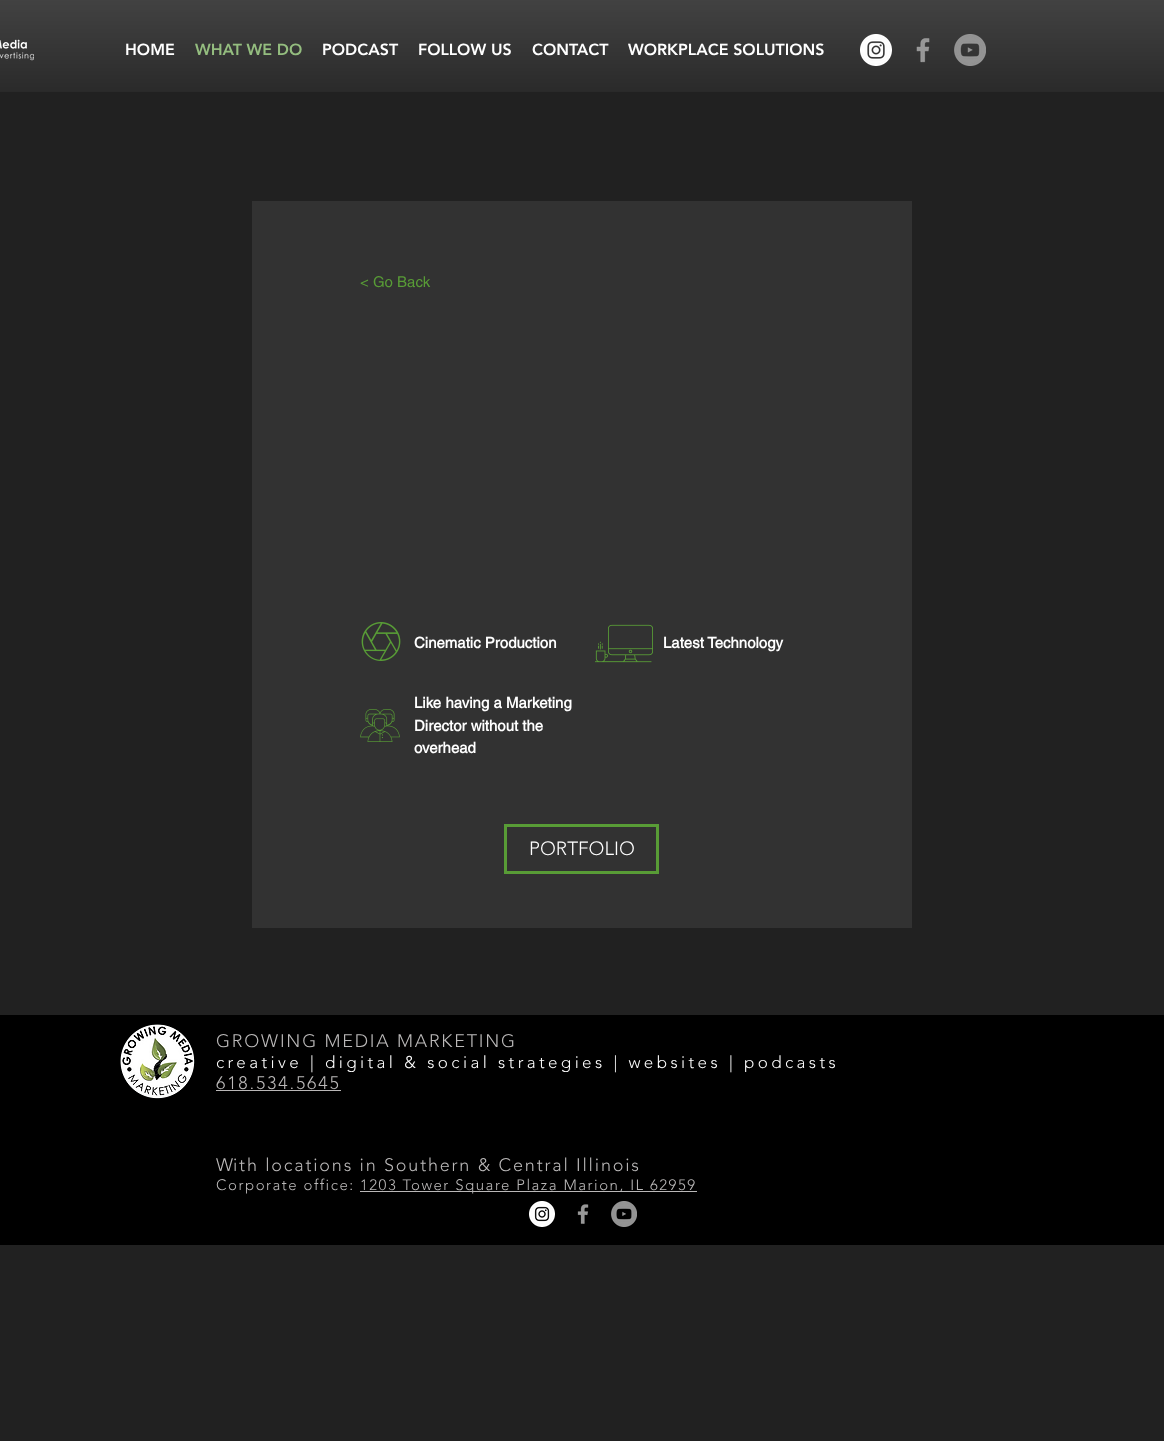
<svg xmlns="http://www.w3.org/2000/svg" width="1164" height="1441">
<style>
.a{font:900 16px 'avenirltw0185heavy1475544';fill:#fff}
.b{font:900 16px 'avenirltw0185heavy1475544';fill:#94bd7f}
.c{font:15px helvetica;fill:#589c36}
.d{font:bold 15px helvetica;fill:#fff}
.e{font:300 19px 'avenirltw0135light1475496';fill:#fff}
.f{font:300 18px 'avenirltw0135light1475496';letter-spacing:1.8px;fill:#bab8b8}
.g{font:300 17px 'avenirltw0135light1475496';letter-spacing:3.4px;fill:#fff}
.h{font:300 18px 'avenirltw0135light1475496';fill:#bab8b8}
.i{font:300 15px 'avenirltw0135light1475496';letter-spacing:1.5px;fill:#bab8b8}
</style>
<rect width="100%" height="100%" fill="#212121"/>
<path fill="#000" d="M0 0h1164v92H0z"/>
<image href="1.png" x="0" y="0" width="1164" height="92"/>
<image href="2.png" x="0" y="39" width="34" height="22"/>
<image href="3.png" x="860" y="34" width="32" height="32"/>
<image href="4.png" x="916" y="38" width="14" height="25"/>
<image href="5.png" x="954" y="34" width="32" height="32"/>
<path fill="#323232" d="M252 201h660v727H252z"/>
<image href="6.png" x="361" y="622" width="40" height="39"/>
<image href="7.png" x="595" y="624" width="58" height="39"/>
<image href="8.png" x="360" y="709" width="40" height="33"/>
<path fill="none" stroke="#589c36" stroke-width="3" d="M505.5 825.5h152v47H505.5z"/>
<path fill="#000" d="M0 1015h1164v230H0z"/>
<image href="9.png" x="120" y="1024" width="75" height="75"/>
<path fill="#bab8b8" d="M216 1090h125v1H216z"/>
<path fill="#bab8b8" d="M360 1191h337v1H360z"/>
<image href="10.png" x="529" y="1201" width="26" height="26"/>
<image href="11.png" x="577" y="1204" width="12" height="20"/>
<image href="12.png" x="611" y="1201" width="26" height="26"/>
<text class="a" x="125" y="55">HOME</text>
<text class="b" x="195" y="55">WHAT WE DO</text>
<text class="a" x="322" y="55">PODCAST</text>
<text class="a" x="418" y="55">FOLLOW US</text>
<text class="a" x="532" y="55">CONTACT</text>
<text class="a" x="628" y="55">WORKPLACE SOLUTIONS</text>
<text class="c" x="360" y="287">&lt; Go Back</text>
<text class="d" x="414" y="648">Cinematic Production</text>
<text class="d" x="663" y="648">Latest Technology</text>
<text class="d" x="414" y="708">Like having a Marketing</text>
<text class="d" x="414" y="731">Director without the</text>
<text class="d" x="414" y="753">overhead</text>
<text class="e" x="529" y="855">PORTFOLIO</text>
<text class="f" x="216" y="1047">GROWING MEDIA MARKETING</text>
<text class="g" x="216" y="1068">creative | digital &amp; social strategies | websites | podcasts</text>
<text class="f" x="216" y="1089">618.534.5645</text>
<text class="h" x="216" y="1171">W</text>
<text class="f" x="233" y="1171">ith locations in Southern &amp; Central Illinois</text>
<text class="i" x="216" y="1190">Corporate office:</text>
<text class="i" x="360" y="1190">1203 Tower Square Plaza Marion, IL 62959</text>
</svg>
